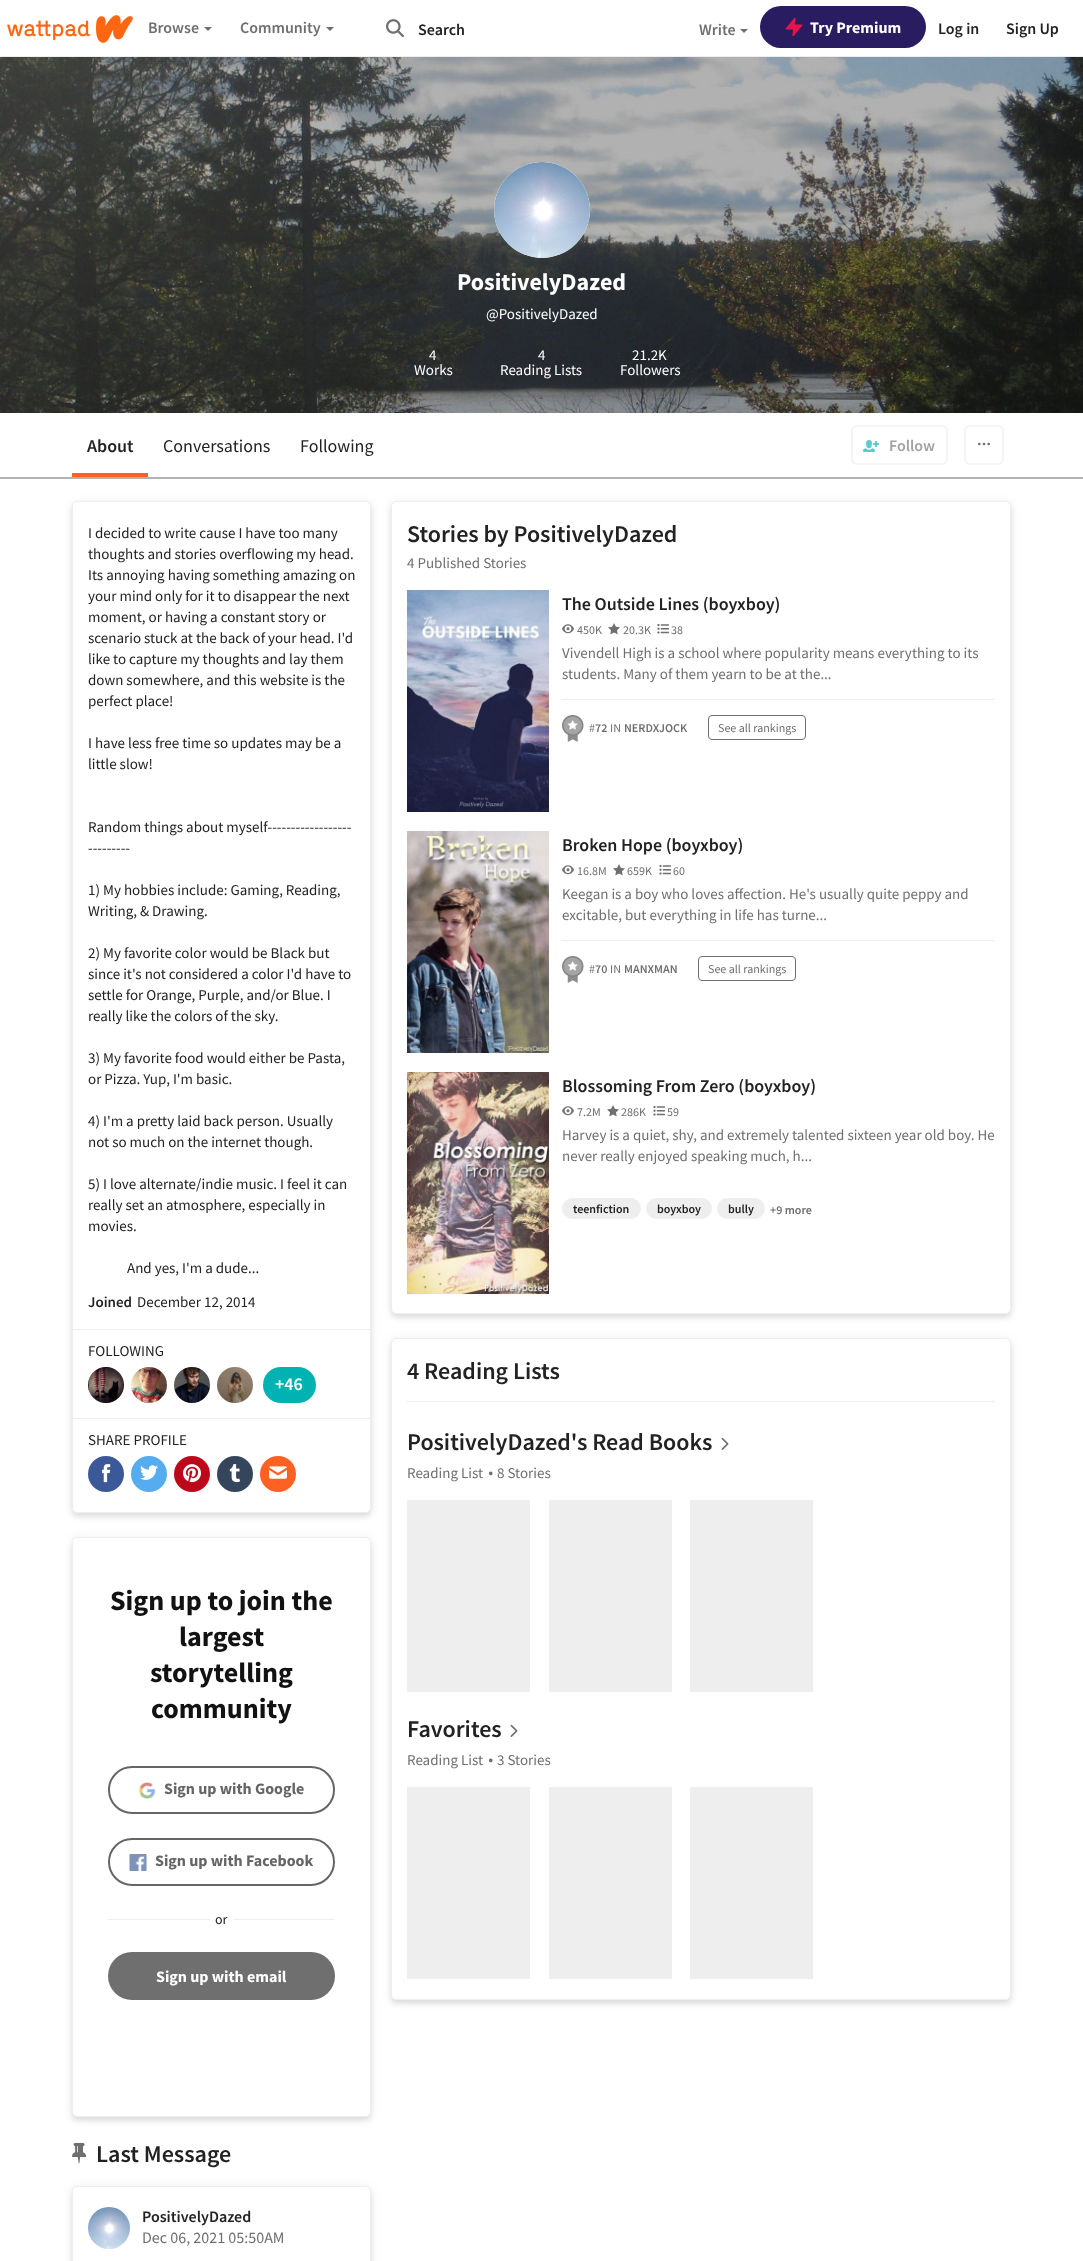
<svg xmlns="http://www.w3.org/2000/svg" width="1083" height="2261">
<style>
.a{font:600 16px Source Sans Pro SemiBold;fill:#6f6f6f}
.b{font:600 16px Source Sans Pro SemiBold;fill:#222}
.c{font:bold 16px Source Sans Pro;fill:#fff}
.d{font:bold 24px Source Sans Pro;fill:#fff}
.e{font:15px Source Sans Pro;fill:#fff}
.f{font:600 18px Source Sans Pro SemiBold;fill:#222}
.g{font:18px Source Sans Pro;fill:#222}
.h{font:600 16px Source Sans Pro SemiBold;fill:#a1a1a1}
.i{font:15px Source Sans Pro;fill:#222}
.j{font:600 15px Source Sans Pro SemiBold;fill:#222}
.k{font:600 18px Source Sans Pro SemiBold;fill:#fff}
.l{font:bold 28px Source Sans Pro;fill:#121212}
.m{font:bold 16px Source Sans Pro;fill:#656565}
.n{font:14px Source Sans Pro;fill:#222}
.o{font:600 24px Source Sans Pro SemiBold;fill:#222}
.p{font:16px Source Sans Pro;fill:#6f6f6f}
.q{font:15px Source Sans Pro;fill:#6f6f6f}
.r{font:12px Source Sans Pro;fill:#6f6f6f}
.s{font:600 12px Source Sans Pro SemiBold;fill:#6f6f6f}
.t{font:600 12px Source Sans Pro SemiBold;fill:#222}
.u{font:30px Source Sans Pro;fill:#6f6f6f}
</style>
<rect width="100%" height="100%" fill="#fff"/>
<path fill="#eee" d="M0 56h1083v1H0z"/>
<image href="1.png" x="7" y="15" width="126" height="28"/>
<path fill="#6f6f6f" d="M204 27h8l-4 4z"/>
<path fill="#6f6f6f" d="M326 27h8l-4 4z"/>
<image href="2.png" x="386" y="19" width="18" height="19"/>
<path fill="#6f6f6f" d="M740 29h8l-4 4z"/>
<rect fill="#2a1c60" x="760" y="6" width="166" height="42" rx="21"/>
<image href="3.png" x="785" y="17" width="18" height="20"/>
<image href="4.png" x="0" y="57" width="1083" height="356"/>
<circle fill="#eee" cx="542" cy="210" r="48"/>
<image href="5.png" x="494" y="162" width="96" height="96"/>
<path fill="#b3b3b3" d="M0 477h1083v2H0z"/>
<path fill="#ff6122" d="M72 473h76v4H72z"/>
<rect fill="none" stroke="#f4f4f4" stroke-width="2" x="852" y="426" width="95" height="38" rx="5"/>
<image href="6.png" x="863" y="440" width="16" height="12"/>
<rect fill="none" stroke="#f4f4f4" stroke-width="2" x="965" y="426" width="38" height="38" rx="5"/>
<circle fill="none" stroke="#6f6f6f" stroke-width="1.3" cx="979.3" cy="444" r="0.7"/>
<circle fill="none" stroke="#6f6f6f" stroke-width="1.3" cx="984" cy="444" r="0.7"/>
<circle fill="none" stroke="#6f6f6f" stroke-width="1.3" cx="988.7" cy="444" r="0.7"/>
<rect fill="#2222221a" filter="blur(2.5px)" x="72" y="505" width="299" height="1012" rx="5"/>
<rect fill="#22222214" filter="blur(5px)" x="72" y="502" width="299" height="1012" rx="5"/>
<rect fill="#fff" stroke="#eee" x="72.5" y="501.5" width="298" height="1011" rx="4.5"/>
<path fill="#eee" d="M73 1329h297v1H73z"/>
<image href="7.png" x="88" y="1367" width="36" height="36"/>
<image href="8.png" x="131" y="1367" width="36" height="36"/>
<image href="9.png" x="174" y="1367" width="36" height="36"/>
<image href="10.png" x="217" y="1367" width="36" height="36"/>
<rect fill="#00b2b2" x="263" y="1367" width="53" height="36" rx="18"/>
<path fill="#eee" d="M73 1418h297v1H73z"/>
<circle fill="#3b5998" cx="106" cy="1474" r="18"/>
<image href="11.png" x="102" y="1464" width="9" height="19"/>
<circle fill="#55acee" cx="149" cy="1474" r="18"/>
<image href="12.png" x="140" y="1465" width="18" height="15"/>
<circle fill="#bd081c" cx="192" cy="1474" r="18"/>
<image href="13.png" x="183" y="1464" width="18" height="19"/>
<circle fill="#35465c" cx="235" cy="1474" r="18"/>
<image href="14.png" x="229" y="1464" width="12" height="19"/>
<circle fill="#ff6122" cx="278" cy="1474" r="18"/>
<image href="15.png" x="269" y="1466" width="18" height="13"/>
<rect fill="#2222221a" filter="blur(2.5px)" x="72" y="1541" width="299" height="580" rx="5"/>
<rect fill="#22222214" filter="blur(5px)" x="72" y="1538" width="299" height="580" rx="5"/>
<rect fill="#fff" stroke="#eee" x="72.5" y="1537.5" width="298" height="579" rx="4.5"/>
<rect fill="none" stroke="#656565" stroke-width="2" x="109" y="1767" width="225" height="46" rx="23"/>
<image href="16.png" x="138" y="1782" width="18" height="17"/>
<rect fill="none" stroke="#656565" stroke-width="2" x="109" y="1839" width="225" height="46" rx="23"/>
<image href="17.png" x="129" y="1854" width="18" height="17"/>
<path fill="#eee" d="M108 1919h102v1H108z"/>
<path fill="#eee" d="M233 1919h102v1H233z"/>
<rect fill="#6f6f6f" x="108" y="1952" width="227" height="48" rx="24"/>
<image href="18.png" x="72" y="2142" width="15" height="22"/>
<rect fill="#2222221a" filter="blur(2.5px)" x="72" y="2190" width="299" height="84" rx="5"/>
<rect fill="#22222214" filter="blur(5px)" x="72" y="2187" width="299" height="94" rx="5"/>
<rect fill="#fff" stroke="#eee" x="72.5" y="2186.5" width="298" height="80" rx="4.5"/>
<circle fill="#eee" cx="109" cy="2228" r="21"/>
<image href="19.png" x="88" y="2207" width="42" height="42"/>
<rect fill="#2222221a" filter="blur(2.5px)" x="391" y="505" width="620" height="813" rx="5"/>
<rect fill="#22222214" filter="blur(5px)" x="391" y="502" width="620" height="813" rx="5"/>
<rect fill="#fff" stroke="#eee" x="391.5" y="501.5" width="619" height="812" rx="4.5"/>
<image href="20.png" x="407" y="590" width="142" height="222"/>
<image href="21.png" x="562" y="624" width="12" height="10"/>
<image href="22.png" x="608" y="623" width="12" height="12"/>
<image href="23.png" x="657" y="623" width="12" height="11"/>
<path fill="#eee" d="M562 699h433v1H562z"/>
<image href="24.png" x="562" y="715" width="22" height="27"/>
<rect fill="none" stroke="#6f6f6f" x="708.5" y="715.5" width="97" height="24" rx="3.5"/>
<image href="25.png" x="407" y="831" width="142" height="222"/>
<image href="21.png" x="562" y="865" width="12" height="10"/>
<image href="22.png" x="613" y="864" width="12" height="12"/>
<image href="23.png" x="659" y="864" width="12" height="11"/>
<path fill="#eee" d="M562 940h433v1H562z"/>
<image href="24.png" x="562" y="956" width="22" height="27"/>
<rect fill="none" stroke="#6f6f6f" x="698.5" y="956.5" width="97" height="24" rx="3.5"/>
<image href="26.png" x="407" y="1072" width="142" height="222"/>
<image href="21.png" x="562" y="1106" width="12" height="10"/>
<image href="22.png" x="607" y="1105" width="12" height="12"/>
<image href="23.png" x="653" y="1105" width="12" height="11"/>
<rect fill="#eee" stroke="#eee" x="562.5" y="1198.5" width="78" height="20" rx="10"/>
<rect fill="#eee" stroke="#eee" x="646.5" y="1198.5" width="65" height="20" rx="10"/>
<rect fill="#eee" stroke="#eee" x="717.5" y="1198.5" width="47" height="20" rx="10"/>
<rect fill="#2222221a" filter="blur(2.5px)" x="391" y="1342" width="620" height="662" rx="5"/>
<rect fill="#22222214" filter="blur(5px)" x="391" y="1339" width="620" height="662" rx="5"/>
<rect fill="#fff" stroke="#eee" x="391.5" y="1338.5" width="619" height="661" rx="4.5"/>
<path fill="#eee" d="M407 1401h588v1H407z"/>
<image href="27.png" x="721" y="1437" width="8" height="13"/>
<path fill="#eee" d="M407 1500h123v192H407z"/>
<path fill="#eee" d="M549 1500h123v192H549z"/>
<path fill="#eee" d="M690 1500h123v192H690z"/>
<image href="27.png" x="510" y="1724" width="8" height="13"/>
<path fill="#eee" d="M407 1787h123v192H407z"/>
<path fill="#eee" d="M549 1787h123v192H549z"/>
<path fill="#eee" d="M690 1787h123v192H690z"/>
<text class="a" x="148" y="33">Browse</text>
<text class="a" x="240" y="33">Community</text>
<text class="b" x="418" y="35">Search</text>
<text class="a" x="699" y="35">Write</text>
<text class="c" x="810" y="33">Try Premium</text>
<text class="b" x="938" y="34">Log in</text>
<text class="b" x="1006" y="34">Sign Up</text>
<text class="d" x="457" y="290">PositivelyDazed</text>
<text class="e" x="486" y="319">@PositivelyDazed</text>
<text class="e" x="429" y="360">4</text>
<text class="e" x="414" y="375">Works</text>
<text class="e" x="538" y="360">4</text>
<text class="e" x="500" y="375">Reading Lists</text>
<text class="e" x="632" y="360">21.2K</text>
<text class="e" x="620" y="375">Followers</text>
<text class="f" x="87" y="452">About</text>
<text class="g" x="163" y="452">Conversations</text>
<text class="g" x="300" y="452">Following</text>
<text class="h" x="889" y="451">Follow</text>
<text class="i" x="88" y="538">I decided to write cause I have too many</text>
<text class="i" x="88" y="559">thoughts and stories overflowing my head.</text>
<text class="i" x="88" y="580">Its annoying having something amazing on</text>
<text class="i" x="88" y="601">your mind only for it to disappear the next</text>
<text class="i" x="88" y="622">moment, or having a constant story or</text>
<text class="i" x="88" y="643">scenario stuck at the back of your head. I'd</text>
<text class="i" x="88" y="664">like to capture my thoughts and lay them</text>
<text class="i" x="88" y="685">down somewhere, and this website is the</text>
<text class="i" x="88" y="706">perfect place!</text>
<text class="i" x="88" y="748">I have less free time so updates may be a</text>
<text class="i" x="88" y="769">little slow!</text>
<text class="i" x="88" y="832">Random things about myself------------------</text>
<text class="i" x="88" y="853">---------</text>
<text class="i" x="88" y="895">1) My hobbies include: Gaming, Reading,</text>
<text class="i" x="88" y="916">Writing, &amp; Drawing.</text>
<text class="i" x="88" y="958">2) My favorite color would be Black but</text>
<text class="i" x="88" y="979">since it's not considered a color I'd have to</text>
<text class="i" x="88" y="1000">settle for Orange, Purple, and/or Blue. I</text>
<text class="i" x="88" y="1021">really like the colors of the sky.</text>
<text class="i" x="88" y="1063">3) My favorite food would either be Pasta,</text>
<text class="i" x="88" y="1084">or Pizza. Yup, I'm basic.</text>
<text class="i" x="88" y="1126">4) I'm a pretty laid back person. Usually</text>
<text class="i" x="88" y="1147">not so much on the internet though.</text>
<text class="i" x="88" y="1189">5) I love alternate/indie music. I feel it can</text>
<text class="i" x="88" y="1210">really set an atmosphere, especially in</text>
<text class="i" x="88" y="1231">movies.</text>
<text class="i" x="127" y="1273">And yes, I'm a dude...</text>
<text class="j" x="88" y="1307">Joined</text>
<text class="i" x="137" y="1307">December 12, 2014</text>
<text class="i" x="88" y="1356">FOLLOWING</text>
<text class="k" x="275" y="1390">+46</text>
<text class="i" x="88" y="1445">SHARE PROFILE</text>
<text class="l" x="110" y="1610">Sign up to join the</text>
<text class="l" x="179" y="1646">largest</text>
<text class="l" x="150" y="1682">storytelling</text>
<text class="l" x="151" y="1718">community</text>
<text class="m" x="164" y="1794">Sign up with Google</text>
<text class="m" x="155" y="1866">Sign up with Facebook</text>
<text class="n" x="215" y="1924">or</text>
<text class="c" x="156" y="1982">Sign up with email</text>
<text class="o" x="96" y="2162">Last Message</text>
<text class="b" x="142" y="2222">PositivelyDazed</text>
<text class="p" x="142" y="2243">Dec 06, 2021 05:50AM</text>
<text class="o" x="407" y="542">Stories by PositivelyDazed</text>
<text class="q" x="407" y="568">4 Published Stories</text>
<text class="f" x="562" y="610">The Outside Lines (boyxboy)</text>
<text class="r" x="577" y="634">450K</text>
<text class="r" x="623" y="634">20.3K</text>
<text class="r" x="671" y="634">38</text>
<text class="q" x="562" y="658">Vivendell High is a school where popularity means everything to its</text>
<text class="q" x="562" y="679">students. Many of them yearn to be at the...</text>
<text class="r" x="589" y="732">#</text>
<text class="s" x="595" y="732">72</text>
<text class="r" x="610" y="732">IN</text>
<text class="s" x="624" y="732">NERDXJOCK</text>
<text class="r" x="718" y="732">See all rankings</text>
<text class="f" x="562" y="851">Broken Hope (boyxboy)</text>
<text class="r" x="577" y="875">16.8M</text>
<text class="r" x="627" y="875">659K</text>
<text class="r" x="673" y="875">60</text>
<text class="q" x="562" y="899">Keegan is a boy who loves affection. He's usually quite peppy and</text>
<text class="q" x="562" y="920">excitable, but everything in life has turne...</text>
<text class="r" x="589" y="973">#</text>
<text class="s" x="595" y="973">70</text>
<text class="r" x="610" y="973">IN</text>
<text class="s" x="624" y="973">MANXMAN</text>
<text class="r" x="708" y="973">See all rankings</text>
<text class="f" x="562" y="1092">Blossoming From Zero (boyxboy)</text>
<text class="r" x="577" y="1116">7.2M</text>
<text class="r" x="621" y="1116">286K</text>
<text class="r" x="667" y="1116">59</text>
<text class="q" x="562" y="1140">Harvey is a quiet, shy, and extremely talented sixteen year old boy. He</text>
<text class="q" x="562" y="1161">never really enjoyed speaking much, h...</text>
<text class="t" x="573" y="1213">teenfiction</text>
<text class="t" x="657" y="1213">boyxboy</text>
<text class="t" x="728" y="1213">bully</text>
<text class="s" x="770" y="1214">+9 more</text>
<text class="o" x="407" y="1379">4 Reading Lists</text>
<text class="o" x="407" y="1450">PositivelyDazed's Read Books</text>
<text class="q" x="407" y="1478">Reading List</text>
<text class="u" x="487" y="1483">·</text>
<text class="q" x="497" y="1478">8 Stories</text>
<text class="o" x="407" y="1737">Favorites</text>
<text class="q" x="407" y="1765">Reading List</text>
<text class="u" x="487" y="1770">·</text>
<text class="q" x="497" y="1765">3 Stories</text>
</svg>
